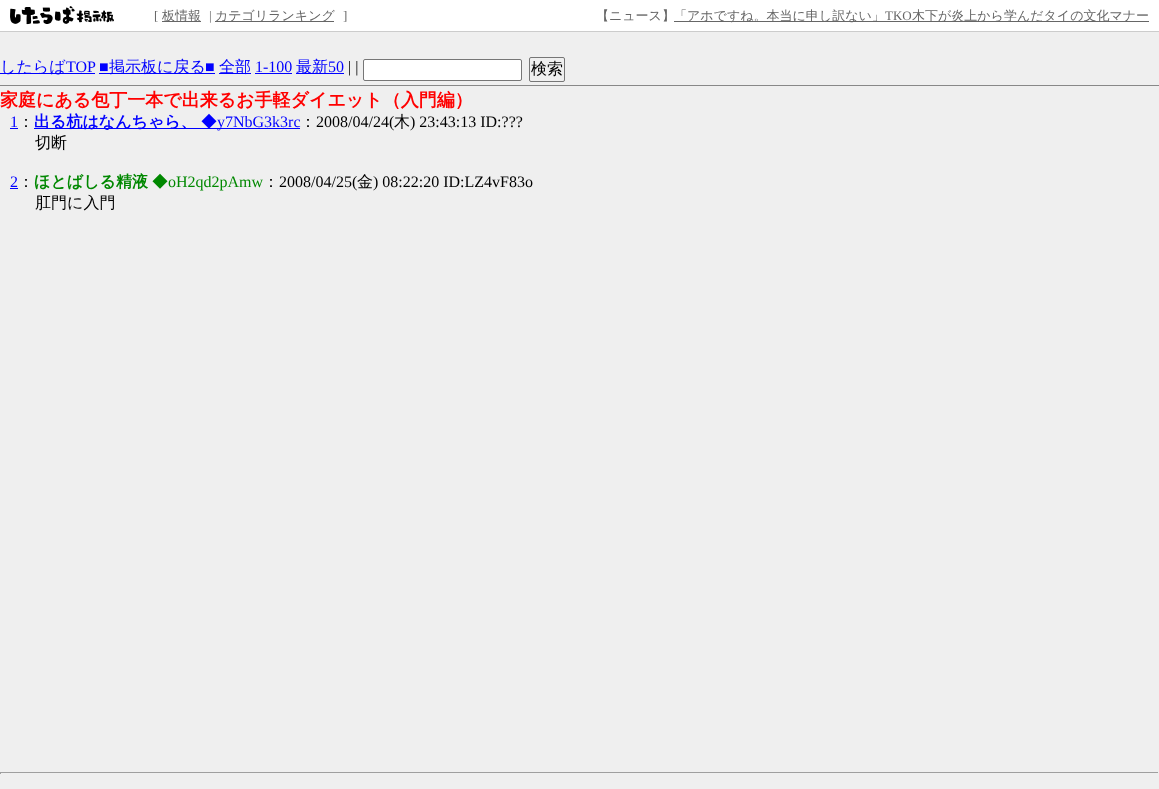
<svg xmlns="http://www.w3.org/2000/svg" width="1159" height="789">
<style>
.a{font:13px Liberation Serif;fill:#666}
.b{font:500 13px WenQuanYi Zen Hei;fill:#666}
.c{font:500 16px WenQuanYi Zen Hei;fill:#00f}
.d{font:16px Liberation Serif;fill:#00f}
.e{font:16px Liberation Serif;fill:#000}
.f{font:500 16px WenQuanYi Zen Hei;fill:#000}
.g{font:bold 18px WenQuanYi Zen Hei;fill:#f00}
.h{font:bold 16px WenQuanYi Zen Hei;fill:#00f}
.i{font:bold 16px WenQuanYi Zen Hei;fill:#080}
.j{font:500 16px WenQuanYi Zen Hei;fill:#080}
.k{font:16px Liberation Serif;fill:#080}
</style>
<rect width="100%" height="100%" fill="#efefef"/>
<path fill="#fff" d="M0 0h1159v31H0z"/>
<path fill="#ccc" d="M0 31h1159v1H0z"/>
<image href="1.png" x="10" y="6" width="104" height="19"/>
<path fill="#666" d="M162 21h39v1H162z"/>
<path fill="#666" d="M215 21h119v1H215z"/>
<path fill="#666" d="M674 21h475v1H674z"/>
<path fill="#888" d="M0 85h1159v1H0z"/>
<path fill="#00f" d="M0 73h95v1H0z"/>
<path fill="#00f" d="M99 73h116v1H99z"/>
<path fill="#00f" d="M219 73h32v1H219z"/>
<path fill="#00f" d="M255 73h37v1H255z"/>
<path fill="#00f" d="M296 73h48v1H296z"/>
<rect fill="#fff" stroke="#767676" x="363.5" y="59.5" width="158" height="21" rx="1.5"/>
<rect fill="none" stroke="#767676" x="529.5" y="57.5" width="35" height="24" rx="1.5"/>
<path fill="#00f" d="M10 128h8v1H10z"/>
<path fill="#00f" d="M34 128h266v1H34z"/>
<path fill="#00f" d="M10 188h8v1H10z"/>
<path fill="#9f9f9f" d="M0 772h1159v1H0z"/>
<path fill="#eee" d="M1158 772h1v2H1158z"/>
<path fill="#9f9f9f" d="M0 772h1v2H0z"/>
<text class="a" x="154" y="20">[</text>
<text class="b" x="162" y="20">板情報</text>
<text class="a" x="209" y="20">|</text>
<text class="b" x="215" y="20">カテゴリランキング</text>
<text class="a" x="343" y="20">]</text>
<text class="b" x="596" y="20">【ニュース】</text>
<text class="b" x="674" y="20">「アホですね。本当に申し訳ない」</text>
<text class="a" x="885" y="20">TKO</text>
<text class="b" x="912" y="20">木下が炎上から学んだタイの文化マナー</text>
<text class="c" x="0" y="72">したらば</text>
<text class="d" x="66" y="72">TOP</text>
<text class="d" x="99" y="72">■</text>
<text class="c" x="109" y="72">掲示板に戻る</text>
<text class="d" x="205" y="72">■</text>
<text class="c" x="219" y="72">全部</text>
<text class="d" x="255" y="72">1-100</text>
<text class="c" x="296" y="72">最新</text>
<text class="d" x="328" y="72">50</text>
<text class="e" x="348" y="72">| |</text>
<text class="f" x="531" y="74">検索</text>
<text class="g" x="0" y="106">家庭にある包丁一本で出来るお手軽ダイエット（入門編）</text>
<text class="d" x="10" y="127">1</text>
<text class="f" x="18" y="127">：</text>
<text class="h" x="34" y="127">出る杭はなんちゃら、</text>
<text class="c" x="201" y="127">◆</text>
<text class="d" x="217" y="127">y7NbG3k3rc</text>
<text class="f" x="300" y="127">：</text>
<text class="e" x="316" y="127">2008/04/24(</text>
<text class="f" x="394" y="127">木</text>
<text class="e" x="410" y="127">) 23:43:13 ID:???</text>
<text class="f" x="35" y="148">切断</text>
<text class="d" x="10" y="187">2</text>
<text class="f" x="18" y="187">：</text>
<text class="i" x="34" y="187">ほとばしる精液</text>
<text class="j" x="152" y="187">◆</text>
<text class="k" x="168" y="187">oH2qd2pAmw</text>
<text class="f" x="263" y="187">：</text>
<text class="e" x="279" y="187">2008/04/25(</text>
<text class="f" x="357" y="187">金</text>
<text class="e" x="373" y="187">) 08:22:20 ID:LZ4vF83o</text>
<text class="f" x="35" y="208">肛門に入門</text>
</svg>
